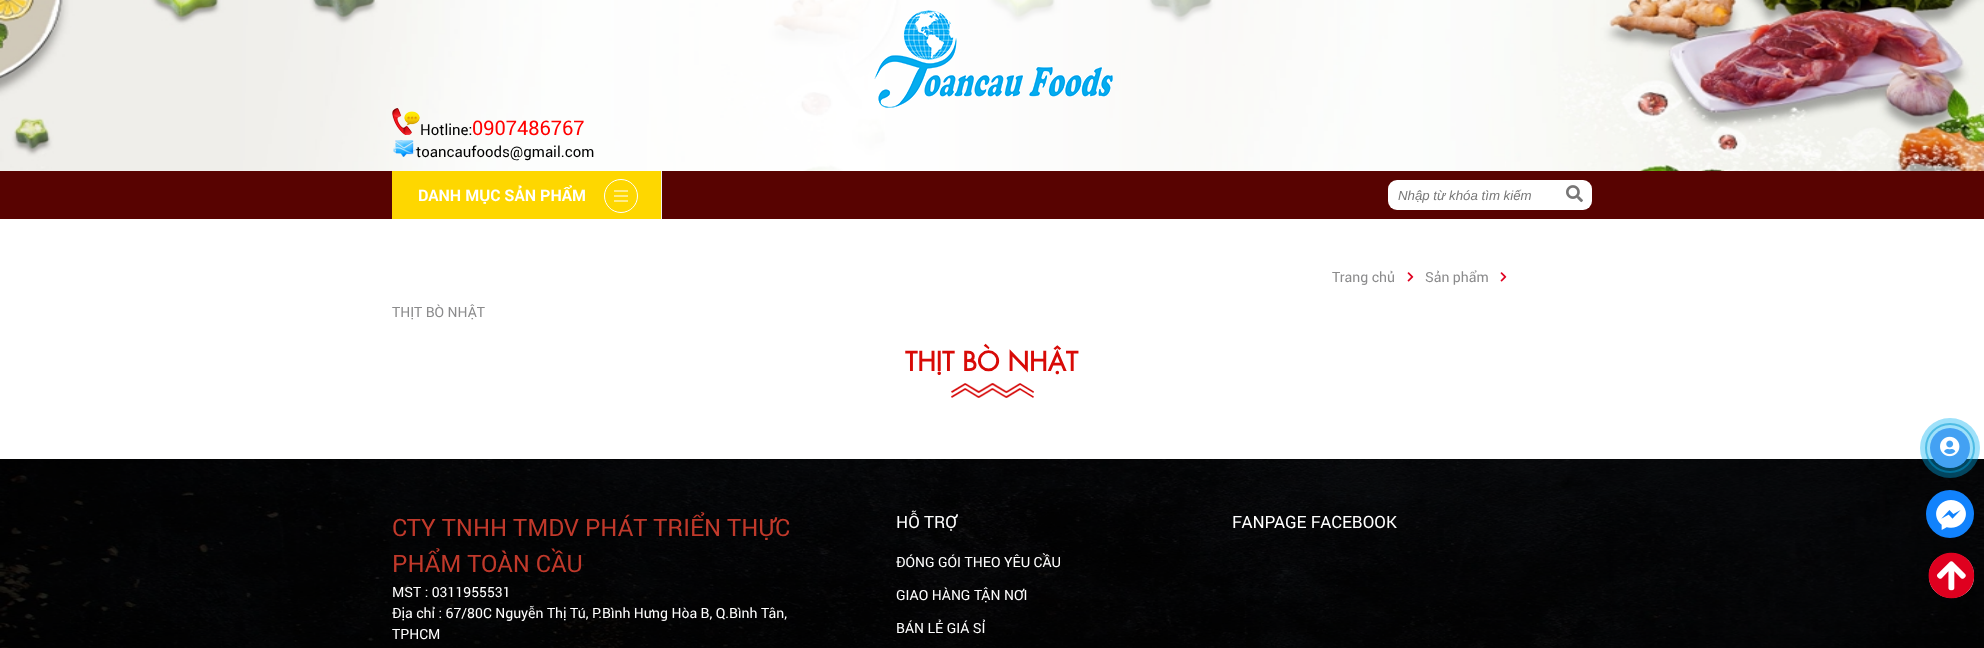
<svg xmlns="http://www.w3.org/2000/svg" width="1984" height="648">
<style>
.a{font:15px Roboto;fill:#000}
.b{font:20px Roboto;fill:#f00}
.c{font:bold 16px Roboto;fill:#fff}
.d{font:italic 13.25px Liberation Sans;fill:#777}
.e{font:14px Roboto;fill:#8b8b8c}
.f{font:bold 26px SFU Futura;fill:#d80a06}
.g{font:24px Roboto;fill:#c0392b}
.h{font:14px Roboto;fill:#fff}
.i{font:17px Roboto;fill:#fff}
</style>
<defs>
<clipPath id="clip1"><path d="M1398 188h133v15H1398z"/></clipPath>
</defs>
<rect width="100%" height="100%" fill="#fff"/>
<image href="1.png" x="0" y="0" width="1984" height="171"/>
<image href="2.png" x="874" y="10" width="239" height="98"/>
<image href="3.png" x="392" y="108" width="28" height="27"/>
<image href="4.png" x="393" y="140" width="23" height="17"/>
<path fill="#580301" d="M0 171h1984v48H0z"/>
<path fill="#fed700" d="M392 171h269v48H392z"/>
<path fill="#efefef" d="M661 171h1v48H661z"/>
<circle fill="none" stroke="#fff" cx="621" cy="196" r="16.5"/>
<image href="5.png" x="614" y="190" width="14" height="12"/>
<rect fill="#fff" x="1388" y="180" width="204" height="30" rx="9"/>
<image href="6.png" x="1566" y="185" width="17" height="18"/>
<image href="7.png" x="1407" y="272" width="7" height="10"/>
<image href="7.png" x="1500" y="272" width="7" height="10"/>
<image href="8.png" x="951" y="383" width="83" height="15"/>
<image href="10.png" x="0" y="459" width="1984" height="189"/>
<circle fill="none" stroke="#0089b980" stroke-width="2" cx="1950" cy="448" r="24"/>
<circle fill="#00aff261" cx="1950" cy="448" r="30"/>
<circle fill="#43a1f3" cx="1950" cy="448" r="20"/>
<image href="9.png" x="1940" y="436" width="20" height="21"/>
<circle fill="#1182fc" cx="1950" cy="514" r="24"/>
<image href="11.png" x="1936" y="500" width="30" height="30"/>
<path fill="#fff" d="M1929 576c0-30 45-30 45 0c0 29-45 29-45 0z"/>
<image href="12.png" x="1928" y="552" width="47" height="47"/>
<text class="a" x="420" y="135">Hotline:</text>
<text class="b" x="472" y="135">0907486767</text>
<text class="a" x="416" y="157">toancaufoods@gmail.com</text>
<text class="c" x="418" y="201">DANH MỤC SẢN PHẨM</text>
<g clip-path="url(#clip1)">
<text class="d" x="1398" y="200">Nhập từ khóa tìm kiếm</text>
</g>
<text class="e" x="1332" y="282">Trang chủ</text>
<text class="e" x="1425" y="282">Sản phẩm</text>
<text class="e" x="392" y="317">THỊT BÒ NHẬT</text>
<text class="f" x="905" y="371">THỊT BÒ NHẬT</text>
<text class="g" x="392" y="536">CTY TNHH TMDV PHÁT TRIỂN THỰC</text>
<text class="g" x="392" y="572">PHẨM TOÀN CẦU</text>
<text class="h" x="392" y="597">MST : 0311955531</text>
<text class="h" x="392" y="618">Địa chỉ : 67/80C Nguyễn Thị Tú, P.Bình Hưng Hòa B, Q.Bình Tân,</text>
<text class="h" x="392" y="639">TPHCM</text>
<text class="i" x="896" y="528">HỖ TRỢ</text>
<text class="h" x="896" y="567">ĐÓNG GÓI THEO YÊU CẦU</text>
<text class="h" x="896" y="600">GIAO HÀNG TẬN NƠI</text>
<text class="h" x="896" y="633">BÁN LẺ GIÁ SỈ</text>
<text class="i" x="1232" y="528">FANPAGE FACEBOOK</text>
</svg>
